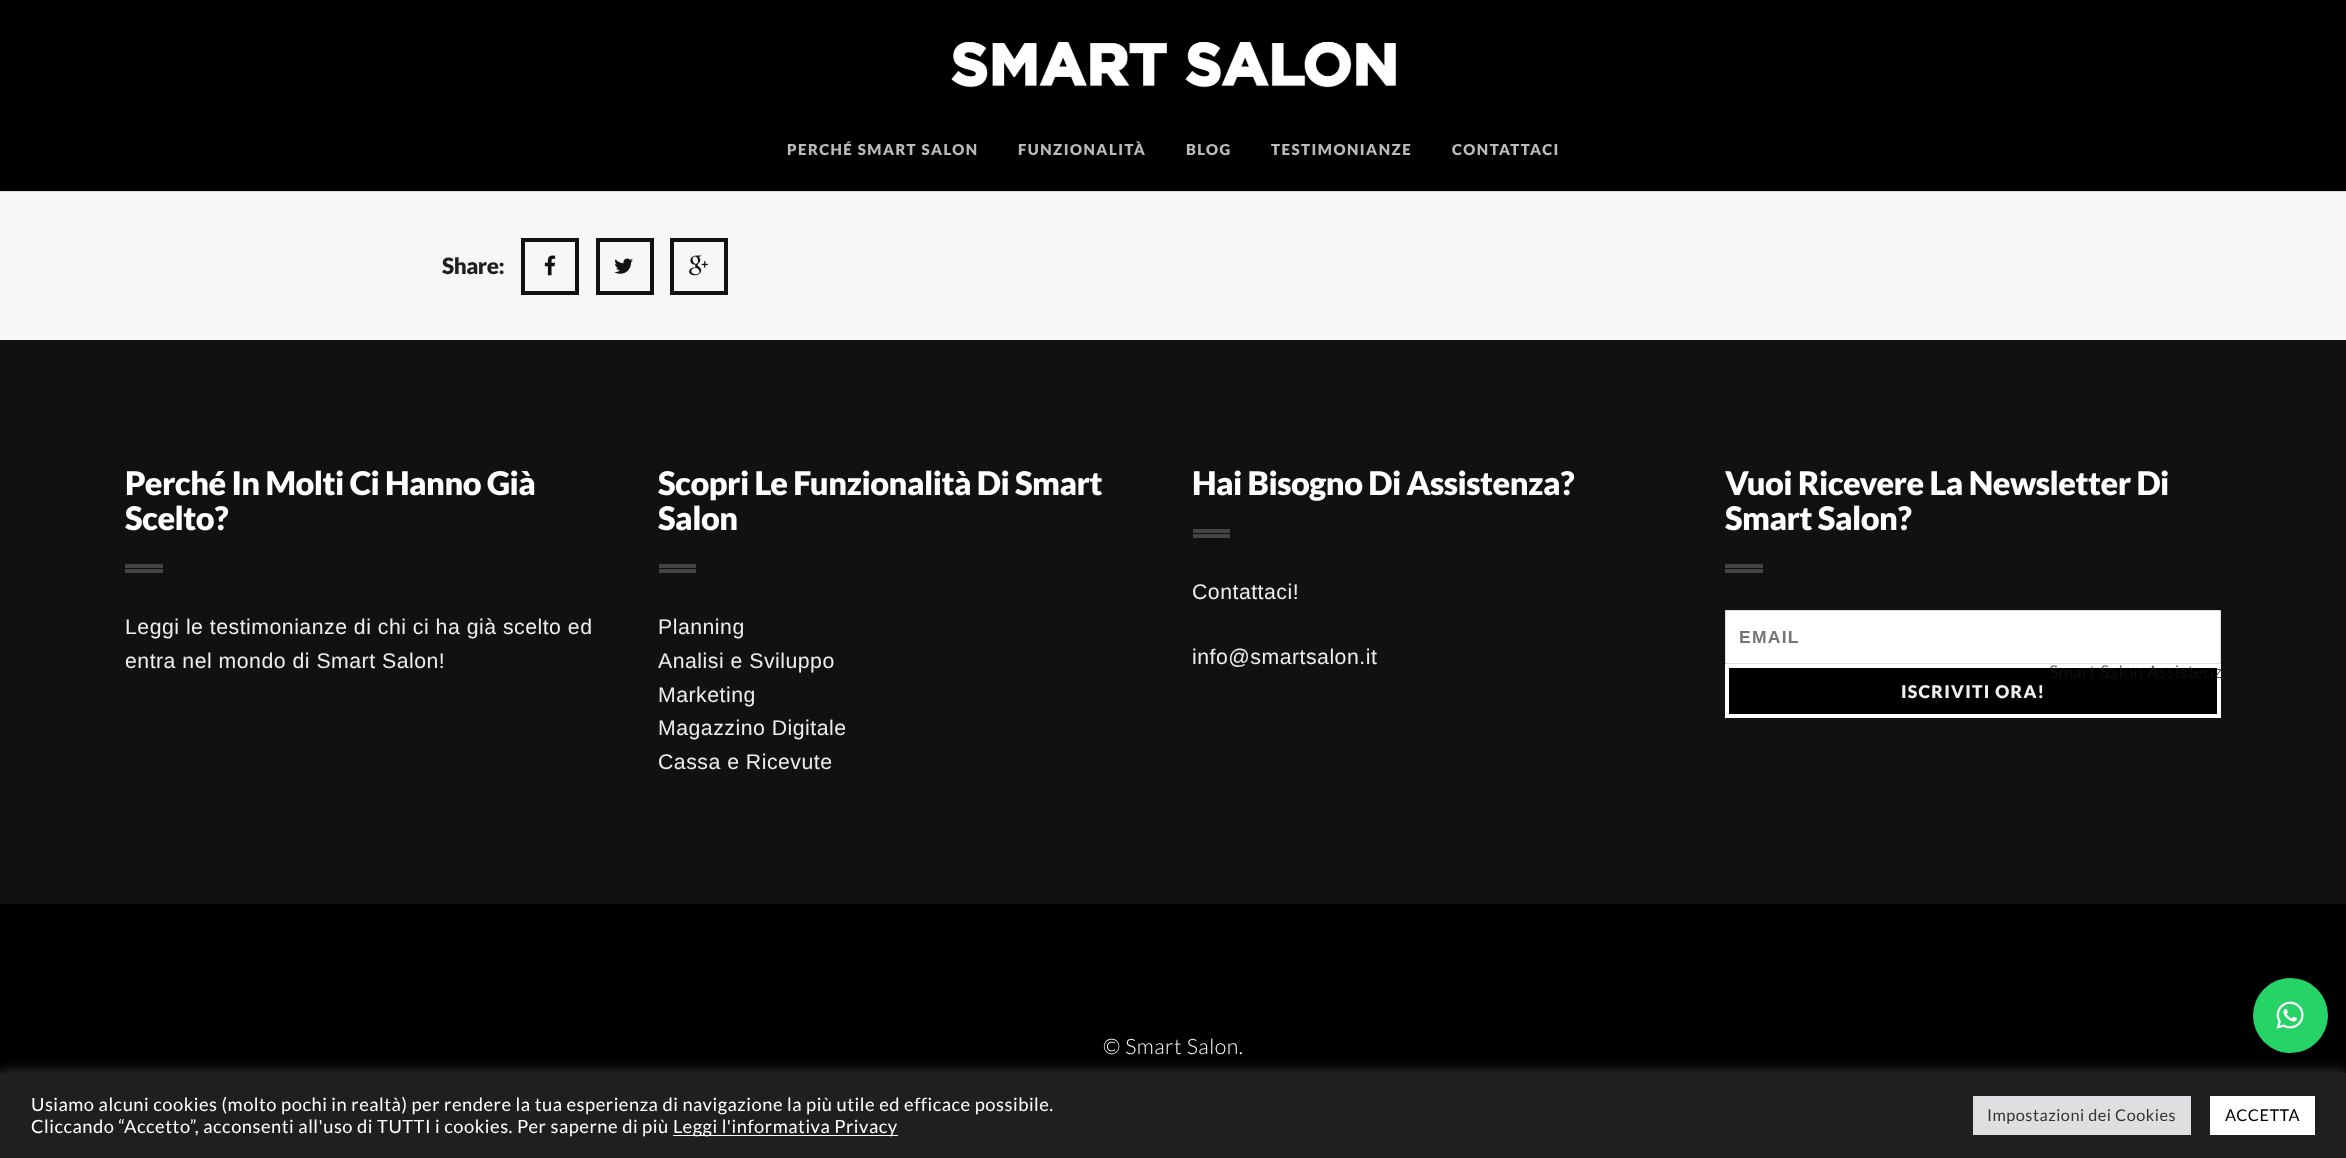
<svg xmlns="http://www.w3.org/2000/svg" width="2346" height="1158">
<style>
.a{font:900 15px Lato;letter-spacing:1.5px;fill:#bababa}
.b{font:900 22.5px Lato;letter-spacing:-0.5px;fill:#1f1f1f}
.c{font:900 32.5px Lato;letter-spacing:-0.5px;fill:#fff}
.d{font:21.25px Liberation Sans;letter-spacing:0.5px;fill:#eee}
.e{font:bold 17.5px Liberation Sans;letter-spacing:1.25px;fill:#757575}
.f{font:900 17.5px Lato;letter-spacing:1.25px;fill:#eee}
.g{font:300 21.25px Lato;letter-spacing:0.5px;fill:#fff}
.h{font:300 17.5px Lato;letter-spacing:0.5px;fill:#181818}
.i{font:18.33px Lato;letter-spacing:0.5px;fill:#fff}
.j{font:16.25px Lato;letter-spacing:0.5px;fill:#333}
.k{font:16.25px Lato;letter-spacing:0.5px;fill:#000}
</style>
<rect width="100%" height="100%" fill="#f7f7f7"/>
<path fill="#000" d="M0 0h2346v191H0z"/>
<path fill="#ddd" d="M0 191h2346v1H0z"/>
<image href="1.png" x="951" y="41" width="445" height="47"/>
<path fill="none" stroke="#111" stroke-width="4" d="M523 240h54v53H523z"/>
<image href="2.png" x="544" y="255" width="12" height="21"/>
<path fill="none" stroke="#111" stroke-width="4" d="M598 240h54v53H598z"/>
<image href="3.png" x="614" y="258" width="19" height="16"/>
<path fill="none" stroke="#111" stroke-width="4" d="M672 240h54v53H672z"/>
<image href="4.png" x="689" y="255" width="19" height="21"/>
<path fill="#000" d="M0 904h2346v169H0z"/>
<path fill="#111" d="M0 340h2346v564H0z"/>
<path fill="#444" d="M125 564h38v4H125z"/>
<path fill="#444" d="M125 569h38v4H125z"/>
<path fill="#444" d="M659 564h37v4H659z"/>
<path fill="#444" d="M659 569h37v4H659z"/>
<path fill="#444" d="M1193 529h37v4H1193z"/>
<path fill="#444" d="M1193 534h37v4H1193z"/>
<path fill="#444" d="M1725 564h38v4H1725z"/>
<path fill="#444" d="M1725 569h38v4H1725z"/>
<path fill="#fff" stroke="#ddd" d="M1725.5 610.5h495v53H1725.5z"/>
<path fill="#000" stroke="#fff" stroke-width="4" d="M1727 666h492v50H1727z"/>
<circle fill="#25d366" cx="2290.5" cy="1015.5" r="37.5"/>
<image href="5.png" x="2276" y="1001" width="28" height="28"/>
<path fill="#acabab4d" filter="blur(6px)" d="M0 1071h2346v87H0z"/>
<path fill="#1f1f1f" d="M0 1073h2346v85H0z"/>
<path fill="#fff" d="M673 1135h225v1H673z"/>
<path fill="#dedfe0" d="M1973 1096h218v39H1973z"/>
<path fill="#fff" d="M2210 1096h105v39H2210z"/>
<text class="a" x="787" y="155">PERCHÉ SMART SALON</text>
<text class="a" x="1018" y="155">FUNZIONALITÀ</text>
<text class="a" x="1186" y="155">BLOG</text>
<text class="a" x="1271" y="155">TESTIMONIANZE</text>
<text class="a" x="1452" y="155">CONTATTACI</text>
<text class="b" x="442" y="274">Share:</text>
<text class="c" x="125" y="495">Perché In Molti Ci Hanno Già</text>
<text class="c" x="125" y="530">Scelto?</text>
<text class="d" x="125" y="634">Leggi le testimonianze di chi ci ha già scelto ed</text>
<text class="d" x="125" y="668">entra nel mondo di Smart Salon!</text>
<text class="c" x="658" y="495">Scopri Le Funzionalità Di Smart</text>
<text class="c" x="658" y="530">Salon</text>
<text class="d" x="658" y="634">Planning</text>
<text class="d" x="658" y="668">Analisi e Sviluppo</text>
<text class="d" x="658" y="702">Marketing</text>
<text class="d" x="658" y="735">Magazzino Digitale</text>
<text class="d" x="658" y="769">Cassa e Ricevute</text>
<text class="c" x="1192" y="495">Hai Bisogno Di Assistenza?</text>
<text class="d" x="1192" y="599">Contattaci!</text>
<text class="d" x="1192" y="664">info@smartsalon.it</text>
<text class="c" x="1725" y="495">Vuoi Ricevere La Newsletter Di</text>
<text class="c" x="1725" y="530">Smart Salon?</text>
<text class="e" x="1739" y="643">EMAIL</text>
<text class="f" x="1901" y="698">ISCRIVITI ORA!</text>
<text class="g" x="1103" y="1054">© Smart Salon.</text>
<text class="h" x="2049" y="678">Smart Salon Assistenz</text>
<text class="i" x="31" y="1111">Usiamo alcuni cookies (molto pochi in realtà) per rendere la tua esperienza di navigazione la più utile ed efficace possibile.</text>
<text class="i" x="31" y="1133">Cliccando “Accetto”, acconsenti all'uso di TUTTI i cookies. Per saperne di più</text>
<text class="i" x="673" y="1133">Leggi l'informativa Privacy</text>
<text class="j" x="1987" y="1121">Impostazioni dei Cookies</text>
<text class="k" x="2225" y="1121">ACCETTA</text>
</svg>
